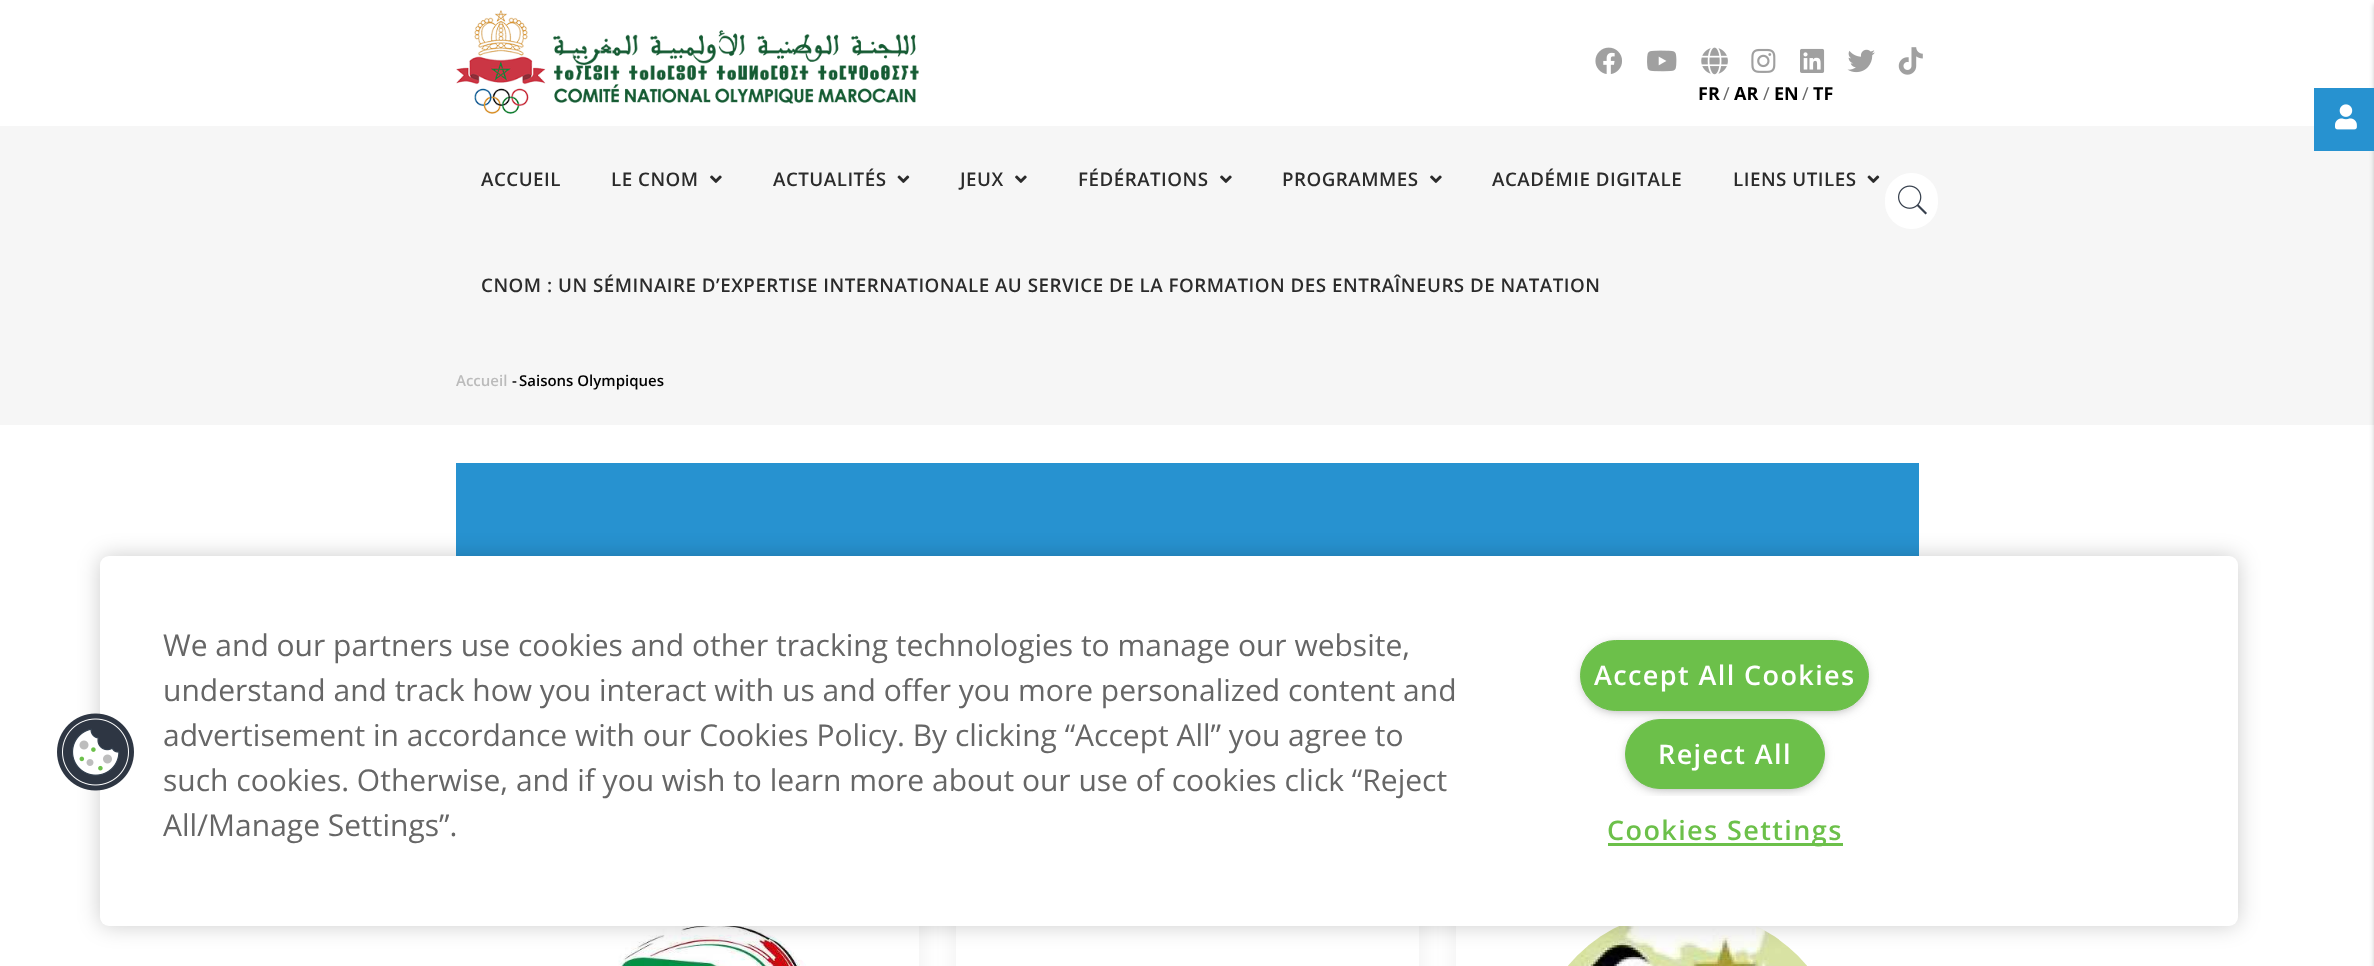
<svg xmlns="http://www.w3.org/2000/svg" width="2374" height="966">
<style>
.a{font:bold 18px Open Sans;fill:#000}
.b{font:18px Open Sans;fill:#666}
.c{font:600 18.75px Open Sans;letter-spacing:0.5px;fill:#2b2b2b}
.d{font:600 15px Open Sans;fill:#bbb}
.e{font:600 15px Open Sans;fill:#000}
.f{font:30px Open Sans;fill:#666}
.g{font:600 27px Open Sans;letter-spacing:1.4px;fill:#fff}
.h{font:600 27px Open Sans;letter-spacing:1.4px;fill:#6cc04a}
</style>
<defs>
<clipPath id="clip1"><path d="M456 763h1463v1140H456z"/></clipPath>
</defs>
<rect width="100%" height="100%" fill="#fff"/>
<image href="1.png" x="456" y="10" width="463" height="104"/>
<image href="2.png" x="1595" y="47" width="27" height="27"/>
<image href="3.png" x="1647" y="50" width="30" height="22"/>
<image href="4.png" x="1701" y="47" width="27" height="28"/>
<image href="5.png" x="1751" y="48" width="25" height="25"/>
<image href="6.png" x="1800" y="48" width="25" height="25"/>
<image href="7.png" x="1847" y="49" width="28" height="24"/>
<image href="8.png" x="1898" y="47" width="25" height="28"/>
<path fill="#f6f6f6" d="M0 126h2374v299H0z"/>
<image href="9.png" x="710" y="175" width="12" height="8"/>
<image href="10.png" x="897" y="175" width="13" height="8"/>
<image href="9.png" x="1015" y="175" width="12" height="8"/>
<image href="9.png" x="1220" y="175" width="12" height="8"/>
<image href="9.png" x="1430" y="175" width="12" height="8"/>
<image href="10.png" x="1867" y="175" width="13" height="8"/>
<rect fill="#fff" x="1885" y="173" width="53" height="56" rx="26.5"/>
<image href="11.png" x="1898" y="185" width="29" height="30"/>
<path fill="#00000033" filter="blur(2.5px)" d="M2374 4h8v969H2374z"/>
<path fill="#2792d0" d="M456 463h1463v93H456z"/>
<g clip-path="url(#clip1)">
<path fill="#0000000d" filter="blur(9.5px)" d="M453 906h470v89H453z"/>
</g>
<path fill="#fff" d="M456 926h463v40H456z"/>
<image href="12.png" x="618" y="926" width="188" height="40"/>
<path fill="#0000000d" filter="blur(9.5px)" d="M953 906h470v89H953z"/>
<path fill="#fff" d="M956 926h463v40H956z"/>
<g clip-path="url(#clip1)">
<path fill="#0000000d" filter="blur(9.5px)" d="M1453 906h470v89H1453z"/>
</g>
<path fill="#fff" d="M1456 926h463v40H1456z"/>
<image href="13.png" x="1568" y="926" width="239" height="40"/>
<path fill="#2792d0" d="M2314 88h60v63H2314z"/>
<image href="14.png" x="2335" y="104" width="22" height="26"/>
<rect fill="#00000033" filter="blur(11px)" x="100" y="556" width="2138" height="370" rx="9"/>
<rect fill="#fff" x="100" y="556" width="2138" height="370" rx="9"/>
<image href="15.png" x="57" y="713" width="77" height="78"/>
<rect fill="#999" filter="blur(6px)" x="1584" y="646" width="281" height="64" rx="32"/>
<rect fill="#6cc04a" stroke="#6cc04a" x="1580.5" y="640.5" width="288" height="70" rx="35"/>
<rect fill="#999" filter="blur(6px)" x="1629" y="725" width="192" height="63" rx="31.5"/>
<rect fill="#6cc04a" stroke="#6cc04a" x="1625.5" y="719.5" width="199" height="69" rx="34.5"/>
<rect fill="#fff" x="1608" y="796" width="235" height="69" rx="34.5"/>
<path fill="#6cc04a" d="M1608 843h235v3H1608z"/>
<text class="a" x="1698" y="100">FR</text>
<text class="b" x="1723" y="100">/</text>
<text class="a" x="1734" y="100">AR</text>
<text class="b" x="1763" y="100">/</text>
<text class="a" x="1774" y="100">EN</text>
<text class="b" x="1802" y="100">/</text>
<text class="a" x="1813" y="100">TF</text>
<text class="c" x="481" y="186">ACCUEIL</text>
<text class="c" x="611" y="186">LE CNOM</text>
<text class="c" x="773" y="186">ACTUALITÉS</text>
<text class="c" x="960" y="186">JEUX</text>
<text class="c" x="1078" y="186">FÉDÉRATIONS</text>
<text class="c" x="1282" y="186">PROGRAMMES</text>
<text class="c" x="1492" y="186">ACADÉMIE DIGITALE</text>
<text class="c" x="1733" y="186">LIENS UTILES</text>
<text class="c" x="481" y="292">CNOM : UN SÉMINAIRE D’EXPERTISE INTERNATIONALE AU SERVICE DE LA FORMATION DES ENTRAÎNEURS DE NATATION</text>
<text class="d" x="456" y="386">Accueil</text>
<text class="e" x="512" y="386">-</text>
<text class="e" x="519" y="386">Saisons Olympiques</text>
<text class="f" x="163" y="656">We and our partners use cookies and other tracking technologies to manage our website,</text>
<text class="f" x="163" y="701">understand and track how you interact with us and offer you more personalized content and</text>
<text class="f" x="163" y="746">advertisement in accordance with our Cookies Policy. By clicking “Accept All” you agree to</text>
<text class="f" x="163" y="791">such cookies. Otherwise, and if you wish to learn more about our use of cookies click “Reject</text>
<text class="f" x="163" y="836">All/Manage Settings”.</text>
<text class="g" x="1594" y="685">Accept All Cookies</text>
<text class="g" x="1658" y="764">Reject All</text>
<text class="h" x="1607" y="840">Cookies Settings</text>
</svg>
